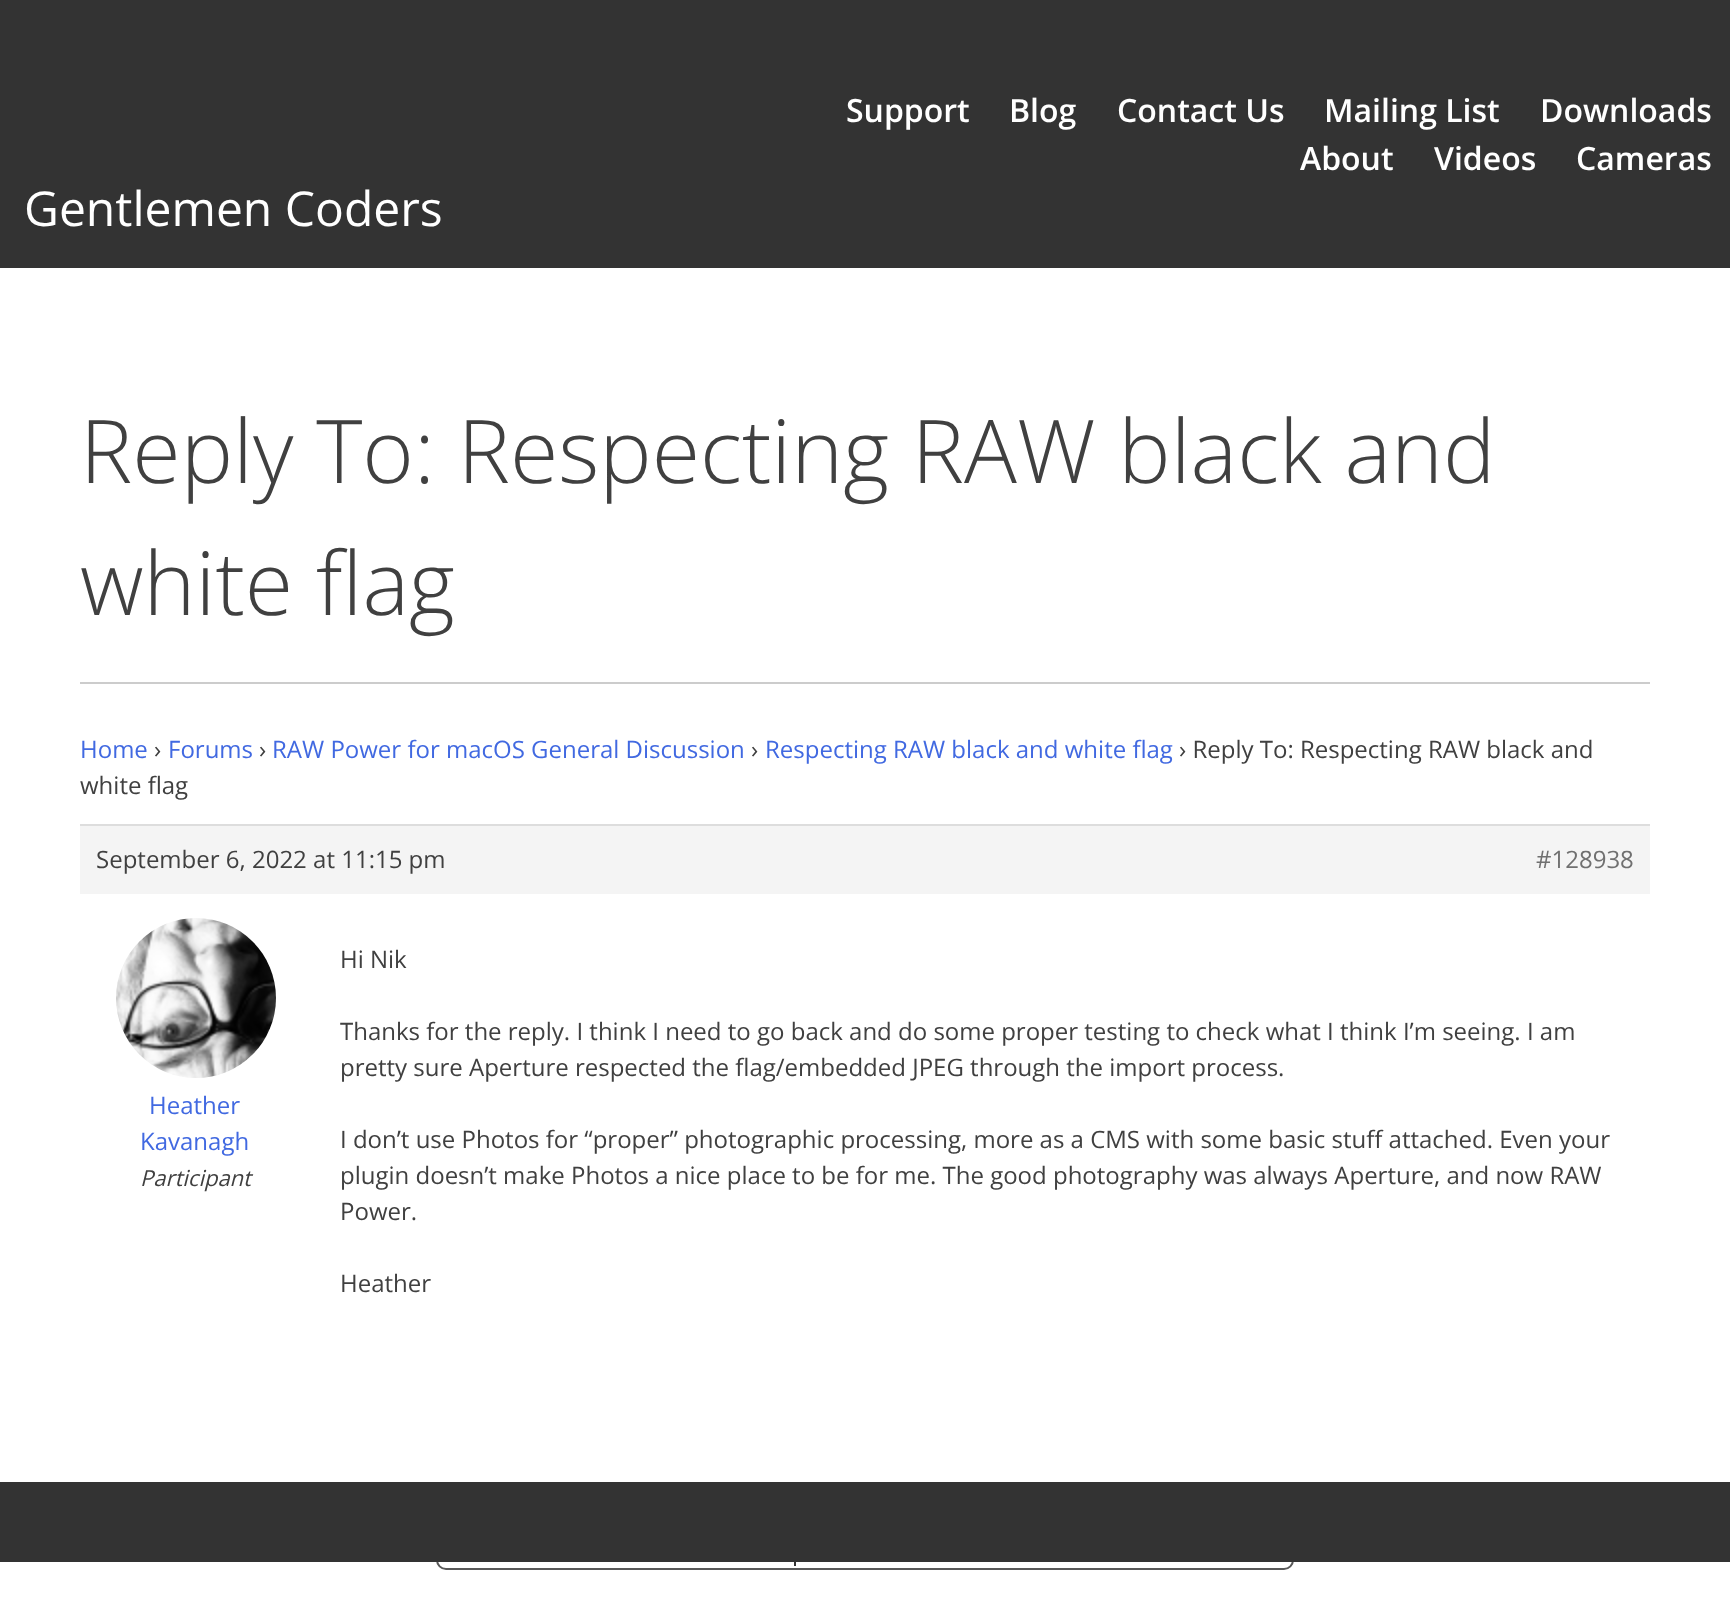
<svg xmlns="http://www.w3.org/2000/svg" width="1730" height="1615">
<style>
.a{font:600 32px Open Sans;fill:#fff}
.b{font:48px Open Sans;fill:#fff}
.c{font:300 88px Open Sans;fill:#404040}
.d{font:24px Open Sans;fill:#4169e1}
.e{font:24px Open Sans;fill:#404040}
.f{font:24px Open Sans;fill:#707070}
.g{font:italic 22px Open Sans;fill:#404040}
</style>
<rect width="100%" height="100%" fill="#fff"/>
<path fill="#333" d="M0 0h1730v268H0z"/>
<path fill="#ccc" d="M80 682h1570v2H80z"/>
<path fill="#f4f4f4" d="M80 826h1570v68H80z"/>
<path fill="#ddd" d="M80 824h1570v2H80z"/>
<image href="1.png" x="116" y="918" width="160" height="160"/>
<rect fill="none" stroke="#595959" stroke-width="2" x="437" y="1499" width="856" height="70" rx="9"/>
<path fill="#333" d="M0 1482h1730v80H0z"/>
<path fill="#333" d="M794 1562h2v4H794z"/>
<text class="a" x="846" y="122">Support</text>
<text class="a" x="1009" y="122">Blog</text>
<text class="a" x="1117" y="122">Contact Us</text>
<text class="a" x="1324" y="122">Mailing List</text>
<text class="a" x="1540" y="122">Downloads</text>
<text class="a" x="1300" y="170">About</text>
<text class="a" x="1434" y="170">Videos</text>
<text class="a" x="1576" y="170">Cameras</text>
<text class="b" x="24" y="226">Gentlemen Coders</text>
<text class="c" x="80" y="483">Reply To: Respecting RAW black and</text>
<text class="c" x="80" y="615">white flag</text>
<text class="d" x="80" y="758">Home</text>
<text class="e" x="154" y="758">›</text>
<text class="d" x="168" y="758">Forums</text>
<text class="e" x="259" y="758">›</text>
<text class="d" x="272" y="758">RAW Power for macOS General Discussion</text>
<text class="e" x="751" y="758">›</text>
<text class="d" x="765" y="758">Respecting RAW black and white flag</text>
<text class="e" x="1179" y="758">› Reply To: Respecting RAW black and</text>
<text class="e" x="80" y="794">white flag</text>
<text class="e" x="96" y="868">September 6, 2022 at 11:15 pm</text>
<text class="f" x="1536" y="868">#128938</text>
<text class="d" x="149" y="1114">Heather</text>
<text class="d" x="140" y="1150">Kavanagh</text>
<text class="g" x="140" y="1186">Participant</text>
<text class="e" x="340" y="968">Hi Nik</text>
<text class="e" x="340" y="1040">Thanks for the reply. I think I need to go back and do some proper testing to check what I think I’m seeing. I am</text>
<text class="e" x="340" y="1076">pretty sure Aperture respected the flag/embedded JPEG through the import process.</text>
<text class="e" x="340" y="1148">I don’t use Photos for “proper” photographic processing, more as a CMS with some basic stuff attached. Even your</text>
<text class="e" x="340" y="1184">plugin doesn’t make Photos a nice place to be for me. The good photography was always Aperture, and now RAW</text>
<text class="e" x="340" y="1220">Power.</text>
<text class="e" x="340" y="1292">Heather</text>
</svg>
